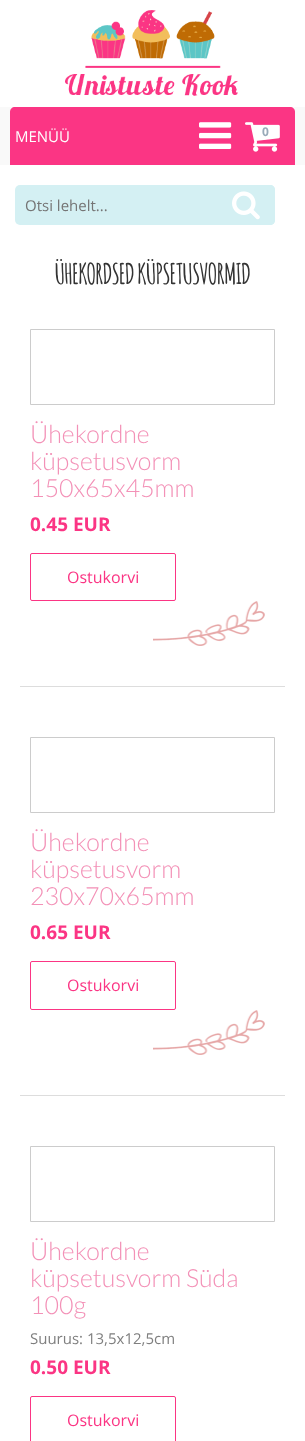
<svg xmlns="http://www.w3.org/2000/svg" width="305" height="1441">
<style>
.a{font:15px Open Sans;fill:#fff}
.b{font:bold 12px Open Sans;fill:#98aab9}
.c{font:15px Open Sans;fill:#757575}
.d{font:bold 28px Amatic;fill:#333}
.e{font:300 25px Lato;fill:#f391b7}
.f{font:bold 19px Open Sans;fill:#fb3584}
.g{font:16px Open Sans;fill:#fb3584}
.h{font:15px Open Sans;fill:#7f7f7f}
</style>
<rect width="100%" height="100%" fill="#fff"/>
<image href="1.png" x="65" y="10" width="173" height="86"/>
<path fill="#f9f9f9" d="M0 107h305v58H0z"/>
<path fill="#fb3584" d="M15 107h275c3 0 5 2 5 5v53h-285v-53c0-3 2-5 5-5z"/>
<image href="2.png" x="199" y="122" width="33" height="27"/>
<image href="3.png" x="245" y="122" width="35" height="30"/>
<rect fill="#d4f0f3" x="15" y="185" width="260" height="40" rx="5"/>
<path fill="#d4f0f3" d="M217 185h53c3 0 5 2 5 5v30c0 3-2 5-5 5h-53z"/>
<image href="4.png" x="232" y="191" width="28" height="29"/>
<path fill="#ddd" d="M20 686h265v1H20z"/>
<path fill="none" stroke="#ccc" d="M30.5 329.5h244v75H30.5z"/>
<rect fill="none" stroke="#fb3584" x="30.5" y="553.5" width="145" height="47" rx="1.5"/>
<image href="5.png" x="153" y="601" width="112" height="45"/>
<path fill="#ddd" d="M20 1095h265v1H20z"/>
<path fill="none" stroke="#ccc" d="M30.5 737.5h244v75H30.5z"/>
<rect fill="none" stroke="#fb3584" x="30.5" y="961.5" width="145" height="48" rx="1.5"/>
<image href="5.png" x="153" y="1010" width="112" height="45"/>
<path fill="none" stroke="#ccc" d="M30.5 1146.5h244v75H30.5z"/>
<rect fill="none" stroke="#fb3584" x="30.5" y="1396.5" width="145" height="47" rx="1.5"/>
<text class="a" x="15" y="142">MENÜÜ</text>
<text class="b" x="262" y="136">0</text>
<text class="c" x="25" y="211">Otsi lehelt...</text>
<text class="d" x="55" y="284">ÜHEKORDSED KÜPSETUSVORMID</text>
<text class="e" x="30" y="443">Ühekordne</text>
<text class="e" x="30" y="470">küpsetusvorm</text>
<text class="e" x="30" y="497">150x65x45mm</text>
<text class="f" x="30" y="531">0.45 EUR</text>
<text class="g" x="67" y="583">Ostukorvi</text>
<text class="e" x="30" y="851">Ühekordne</text>
<text class="e" x="30" y="878">küpsetusvorm</text>
<text class="e" x="30" y="905">230x70x65mm</text>
<text class="f" x="30" y="939">0.65 EUR</text>
<text class="g" x="67" y="991">Ostukorvi</text>
<text class="e" x="30" y="1260">Ühekordne</text>
<text class="e" x="30" y="1287">küpsetusvorm Süda</text>
<text class="e" x="30" y="1314">100g</text>
<text class="h" x="30" y="1344">Suurus: 13,5x12,5cm</text>
<text class="f" x="30" y="1374">0.50 EUR</text>
<text class="g" x="67" y="1426">Ostukorvi</text>
</svg>
